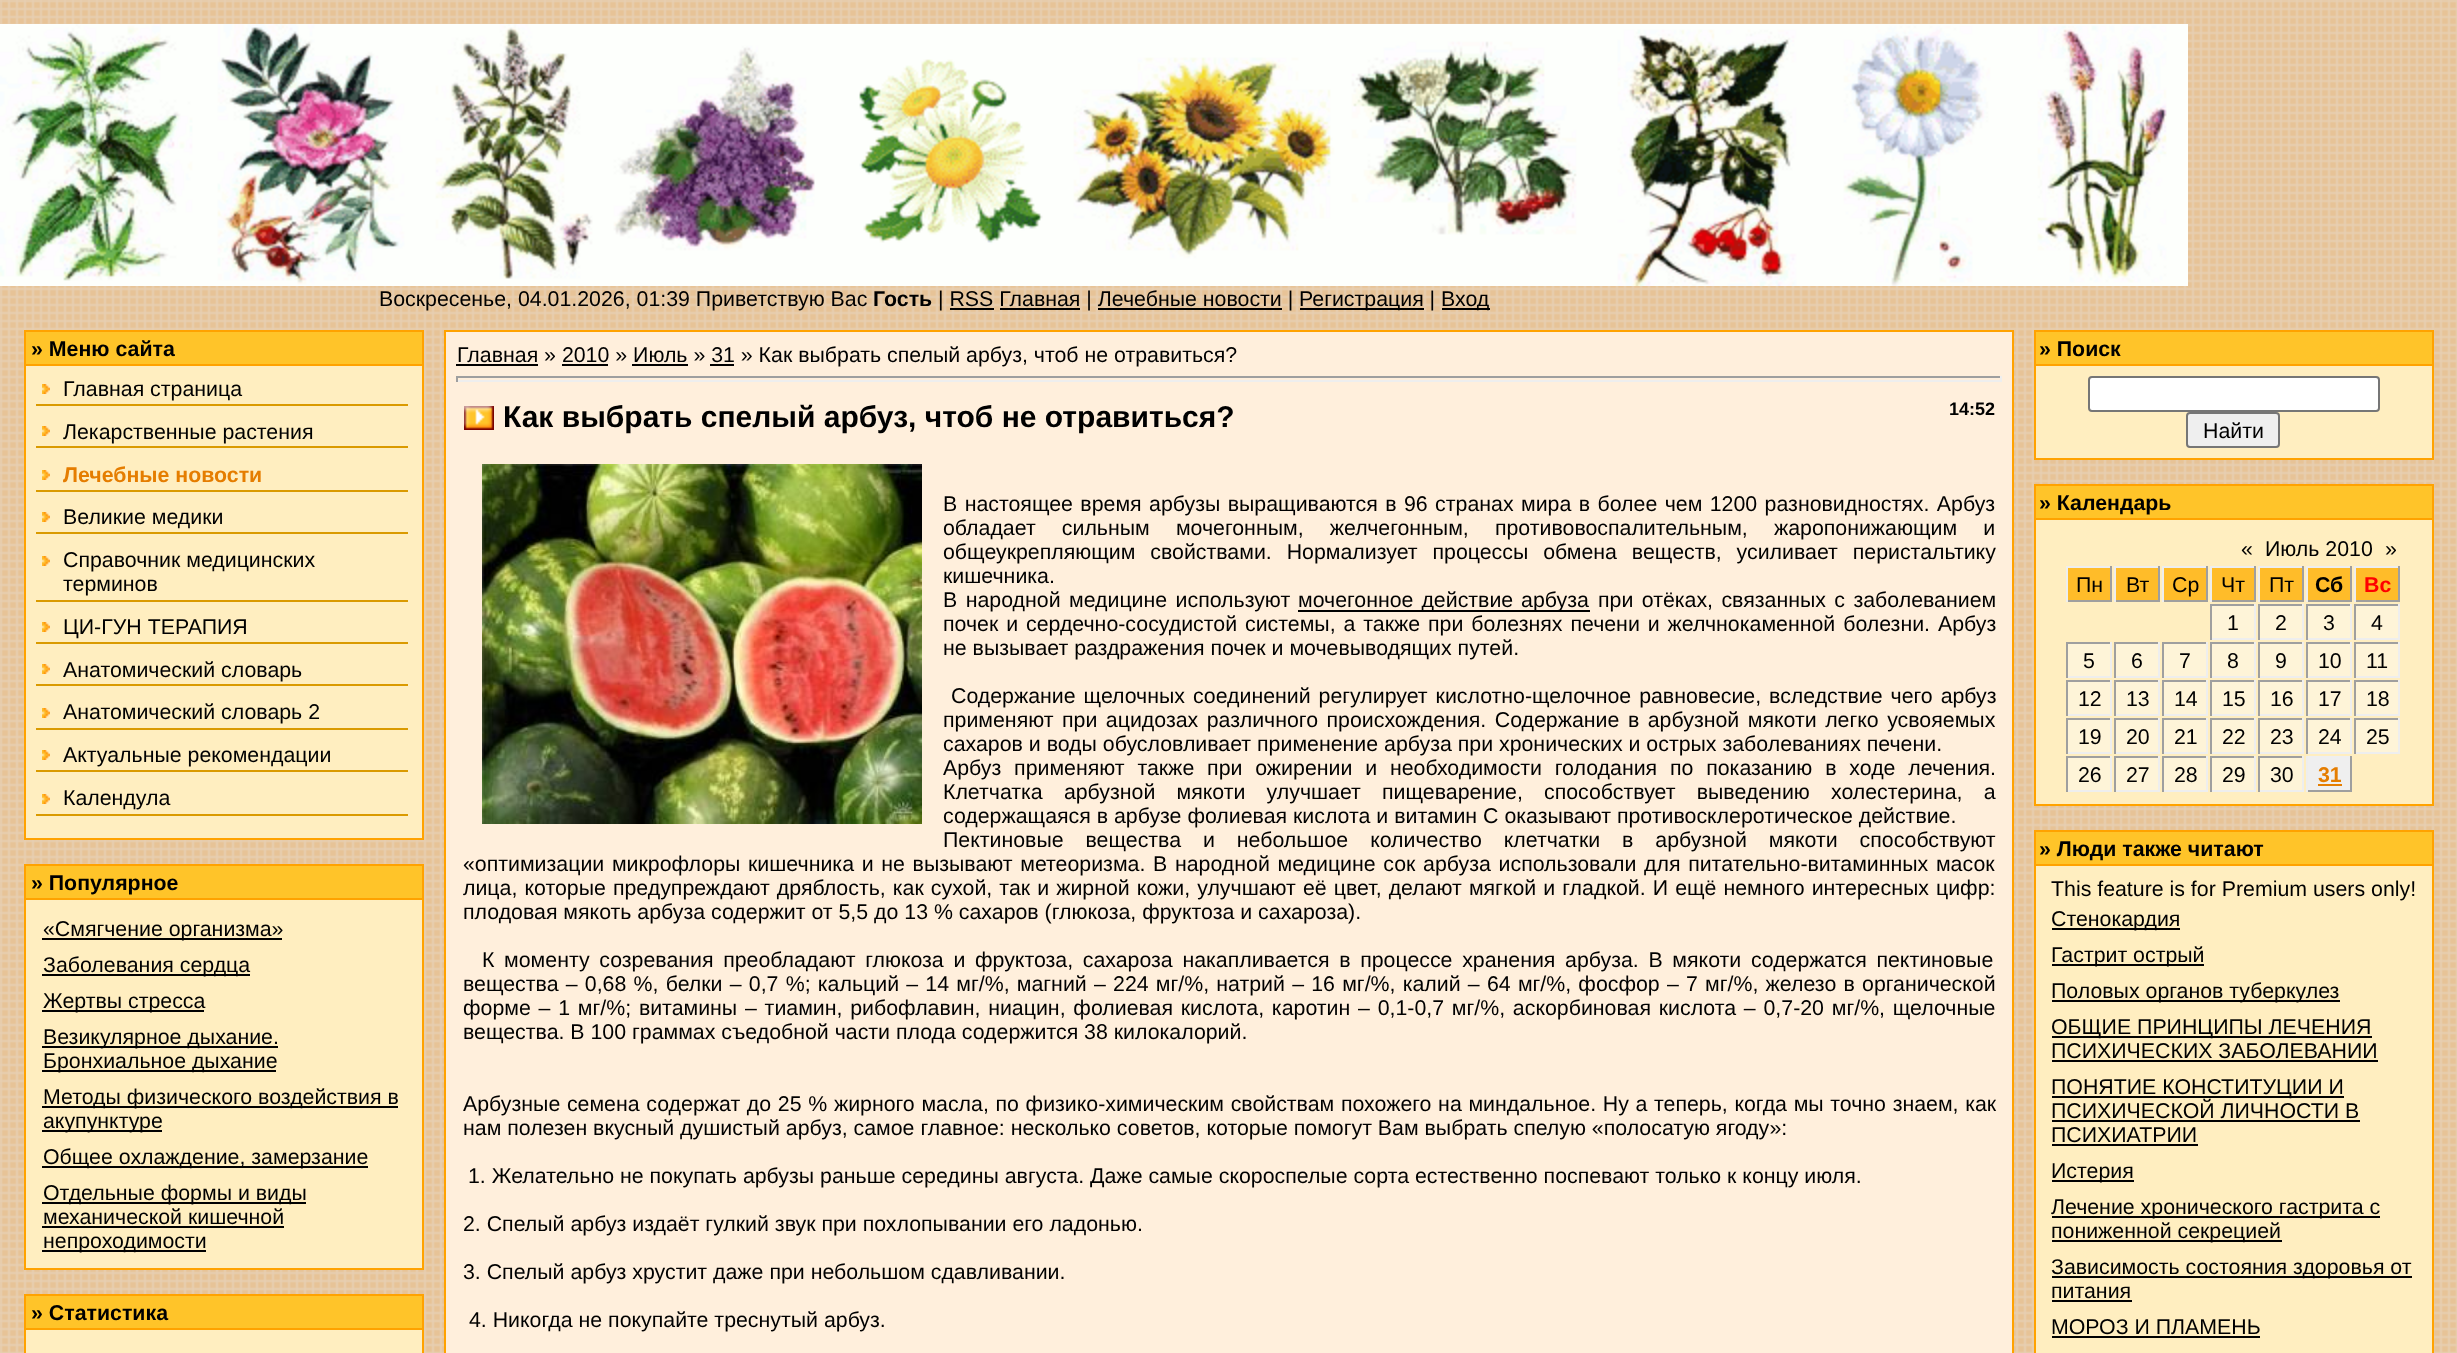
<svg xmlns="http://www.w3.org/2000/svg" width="2457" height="1353">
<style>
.a{font:21.33px Liberation Sans;fill:#000}
.b{font:bold 21.33px Liberation Sans;fill:#000}
.c{font:bold 21.33px Liberation Sans;fill:#e57d00}
.d{font:bold 30px Liberation Sans;fill:#000}
.e{font:bold 18px Liberation Sans;fill:#000}
.f{font:bold 21.33px Liberation Sans;fill:#f00}
</style>
<rect width="100%" height="100%" fill="#fff"/>
<image href="1.png" x="0" y="0" width="2457" height="1353"/>
<image href="2.png" x="0" y="24" width="2188" height="262"/>
<path fill="#000" d="M1300 308h124v2H1300z"/>
<path fill="#000" d="M1442 308h48v2H1442z"/>
<path fill="#000" d="M950 308h44v2H950z"/>
<path fill="#000" d="M1000 308h80v2H1000z"/>
<path fill="#000" d="M1098 308h184v2H1098z"/>
<path fill="#ffa200" d="M24 330h400v510H24z"/>
<path fill="#ffc429" d="M26 332h396v32H26z"/>
<path fill="#ffeec0" d="M26 366h396v472H26z"/>
<image href="3.png" x="42" y="384" width="8" height="10"/>
<path fill="#da9a00" d="M36 404h372v2H36z"/>
<image href="3.png" x="42" y="426" width="8" height="10"/>
<path fill="#da9a00" d="M36 446h372v2H36z"/>
<image href="3.png" x="42" y="470" width="8" height="10"/>
<path fill="#da9a00" d="M36 490h372v2H36z"/>
<image href="3.png" x="42" y="512" width="8" height="10"/>
<path fill="#da9a00" d="M36 532h372v2H36z"/>
<image href="3.png" x="42" y="556" width="8" height="10"/>
<path fill="#da9a00" d="M36 600h372v2H36z"/>
<image href="3.png" x="42" y="622" width="8" height="10"/>
<path fill="#da9a00" d="M36 642h372v2H36z"/>
<image href="3.png" x="42" y="664" width="8" height="10"/>
<path fill="#da9a00" d="M36 684h372v2H36z"/>
<image href="3.png" x="42" y="708" width="8" height="10"/>
<path fill="#da9a00" d="M36 728h372v2H36z"/>
<image href="3.png" x="42" y="750" width="8" height="10"/>
<path fill="#da9a00" d="M36 770h372v2H36z"/>
<image href="3.png" x="42" y="794" width="8" height="10"/>
<path fill="#da9a00" d="M36 814h372v2H36z"/>
<path fill="#ffa200" d="M24 864h400v406H24z"/>
<path fill="#ffc429" d="M26 866h396v32H26z"/>
<path fill="#ffeec0" d="M26 900h396v368H26z"/>
<path fill="#000" d="M42 938h240v2H42z"/>
<path fill="#000" d="M42 974h208v2H42z"/>
<path fill="#000" d="M42 1010h162v2H42z"/>
<path fill="#000" d="M42 1046h236v2H42z"/>
<path fill="#000" d="M42 1070h234v2H42z"/>
<path fill="#000" d="M42 1106h356v2H42z"/>
<path fill="#000" d="M42 1130h120v2H42z"/>
<path fill="#000" d="M42 1166h326v2H42z"/>
<path fill="#000" d="M42 1202h264v2H42z"/>
<path fill="#000" d="M42 1226h242v2H42z"/>
<path fill="#000" d="M42 1250h164v2H42z"/>
<path fill="#ffa200" d="M24 1294h400v59H24z"/>
<path fill="#ffc429" d="M26 1296h396v32H26z"/>
<path fill="#ffeec0" d="M26 1330h396v23H26z"/>
<path fill="none" stroke="#ffa200" stroke-width="2" d="M445 331h1568v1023H445z"/>
<path fill="#ffefdc" d="M446 332h1566v1021H446z"/>
<path fill="#000" d="M456 364h82v2H456z"/>
<path fill="#000" d="M562 364h46v2H562z"/>
<path fill="#000" d="M632 364h56v2H632z"/>
<path fill="#000" d="M710 364h24v2H710z"/>
<path fill="#9f9f9f" d="M456 376h1546v2H456z"/>
<path fill="#eee" d="M2000 376h2v6H2000z"/>
<path fill="#eee" d="M456 380h1546v2H456z"/>
<path fill="#9f9f9f" d="M456 376h2v6H456z"/>
<image href="4.png" x="464" y="406" width="30" height="24"/>
<image href="5.png" x="482" y="464" width="440" height="360"/>
<path fill="#000" d="M1298 610h292v2H1298z"/>
<path fill="#ffa200" d="M2034 330h400v130H2034z"/>
<path fill="#ffc429" d="M2036 332h396v32H2036z"/>
<path fill="#ffeec0" d="M2036 366h396v92H2036z"/>
<rect fill="#fff" stroke="#767676" stroke-width="2" x="2089" y="377" width="290" height="34" rx="3"/>
<rect fill="#efefef" stroke="#767676" stroke-width="2" x="2187" y="413" width="92" height="34" rx="3"/>
<path fill="#ffa200" d="M2034 484h400v322H2034z"/>
<path fill="#ffc429" d="M2036 486h396v32H2036z"/>
<path fill="#ffeec0" d="M2036 520h396v284H2036z"/>
<path fill="#ffbc29" d="M2068 568h42v32H2068z"/>
<path fill="#eee" d="M2066 566h46v2H2066z"/>
<path fill="#9f9f9f" d="M2110 566h2v36H2110z"/>
<path fill="#9f9f9f" d="M2066 600h46v2H2066z"/>
<path fill="#eee" d="M2066 566h2v36H2066z"/>
<path fill="#ffbc29" d="M2116 568h42v32H2116z"/>
<path fill="#eee" d="M2114 566h46v2H2114z"/>
<path fill="#9f9f9f" d="M2158 566h2v36H2158z"/>
<path fill="#9f9f9f" d="M2114 600h46v2H2114z"/>
<path fill="#eee" d="M2114 566h2v36H2114z"/>
<path fill="#ffbc29" d="M2164 568h42v32H2164z"/>
<path fill="#eee" d="M2162 566h46v2H2162z"/>
<path fill="#9f9f9f" d="M2206 566h2v36H2206z"/>
<path fill="#9f9f9f" d="M2162 600h46v2H2162z"/>
<path fill="#eee" d="M2162 566h2v36H2162z"/>
<path fill="#ffbc29" d="M2212 568h42v32H2212z"/>
<path fill="#eee" d="M2210 566h46v2H2210z"/>
<path fill="#9f9f9f" d="M2254 566h2v36H2254z"/>
<path fill="#9f9f9f" d="M2210 600h46v2H2210z"/>
<path fill="#eee" d="M2210 566h2v36H2210z"/>
<path fill="#ffbc29" d="M2260 568h42v32H2260z"/>
<path fill="#eee" d="M2258 566h46v2H2258z"/>
<path fill="#9f9f9f" d="M2302 566h2v36H2302z"/>
<path fill="#9f9f9f" d="M2258 600h46v2H2258z"/>
<path fill="#eee" d="M2258 566h2v36H2258z"/>
<path fill="#ffbc29" d="M2308 568h42v32H2308z"/>
<path fill="#eee" d="M2306 566h46v2H2306z"/>
<path fill="#9f9f9f" d="M2350 566h2v36H2350z"/>
<path fill="#9f9f9f" d="M2306 600h46v2H2306z"/>
<path fill="#eee" d="M2306 566h2v36H2306z"/>
<path fill="#ffbc29" d="M2356 568h42v32H2356z"/>
<path fill="#eee" d="M2354 566h46v2H2354z"/>
<path fill="#9f9f9f" d="M2398 566h2v36H2398z"/>
<path fill="#9f9f9f" d="M2354 600h46v2H2354z"/>
<path fill="#eee" d="M2354 566h2v36H2354z"/>
<path fill="#fef4d8" d="M2212 606h42v32H2212z"/>
<path fill="#9f9f9f" d="M2210 604h46v2H2210z"/>
<path fill="#eee" d="M2254 604h2v36H2254z"/>
<path fill="#eee" d="M2210 638h46v2H2210z"/>
<path fill="#9f9f9f" d="M2210 604h2v36H2210z"/>
<path fill="#fef4d8" d="M2260 606h42v32H2260z"/>
<path fill="#9f9f9f" d="M2258 604h46v2H2258z"/>
<path fill="#eee" d="M2302 604h2v36H2302z"/>
<path fill="#eee" d="M2258 638h46v2H2258z"/>
<path fill="#9f9f9f" d="M2258 604h2v36H2258z"/>
<path fill="#fef4d8" d="M2308 606h42v32H2308z"/>
<path fill="#9f9f9f" d="M2306 604h46v2H2306z"/>
<path fill="#eee" d="M2350 604h2v36H2350z"/>
<path fill="#eee" d="M2306 638h46v2H2306z"/>
<path fill="#9f9f9f" d="M2306 604h2v36H2306z"/>
<path fill="#fef4d8" d="M2356 606h42v32H2356z"/>
<path fill="#9f9f9f" d="M2354 604h46v2H2354z"/>
<path fill="#eee" d="M2398 604h2v36H2398z"/>
<path fill="#eee" d="M2354 638h46v2H2354z"/>
<path fill="#9f9f9f" d="M2354 604h2v36H2354z"/>
<path fill="#fef4d8" d="M2068 644h42v32H2068z"/>
<path fill="#9f9f9f" d="M2066 642h46v2H2066z"/>
<path fill="#eee" d="M2110 642h2v36H2110z"/>
<path fill="#eee" d="M2066 676h46v2H2066z"/>
<path fill="#9f9f9f" d="M2066 642h2v36H2066z"/>
<path fill="#fef4d8" d="M2116 644h42v32H2116z"/>
<path fill="#9f9f9f" d="M2114 642h46v2H2114z"/>
<path fill="#eee" d="M2158 642h2v36H2158z"/>
<path fill="#eee" d="M2114 676h46v2H2114z"/>
<path fill="#9f9f9f" d="M2114 642h2v36H2114z"/>
<path fill="#fef4d8" d="M2164 644h42v32H2164z"/>
<path fill="#9f9f9f" d="M2162 642h46v2H2162z"/>
<path fill="#eee" d="M2206 642h2v36H2206z"/>
<path fill="#eee" d="M2162 676h46v2H2162z"/>
<path fill="#9f9f9f" d="M2162 642h2v36H2162z"/>
<path fill="#fef4d8" d="M2212 644h42v32H2212z"/>
<path fill="#9f9f9f" d="M2210 642h46v2H2210z"/>
<path fill="#eee" d="M2254 642h2v36H2254z"/>
<path fill="#eee" d="M2210 676h46v2H2210z"/>
<path fill="#9f9f9f" d="M2210 642h2v36H2210z"/>
<path fill="#fef4d8" d="M2260 644h42v32H2260z"/>
<path fill="#9f9f9f" d="M2258 642h46v2H2258z"/>
<path fill="#eee" d="M2302 642h2v36H2302z"/>
<path fill="#eee" d="M2258 676h46v2H2258z"/>
<path fill="#9f9f9f" d="M2258 642h2v36H2258z"/>
<path fill="#fef4d8" d="M2308 644h42v32H2308z"/>
<path fill="#9f9f9f" d="M2306 642h46v2H2306z"/>
<path fill="#eee" d="M2350 642h2v36H2350z"/>
<path fill="#eee" d="M2306 676h46v2H2306z"/>
<path fill="#9f9f9f" d="M2306 642h2v36H2306z"/>
<path fill="#fef4d8" d="M2356 644h42v32H2356z"/>
<path fill="#9f9f9f" d="M2354 642h46v2H2354z"/>
<path fill="#eee" d="M2398 642h2v36H2398z"/>
<path fill="#eee" d="M2354 676h46v2H2354z"/>
<path fill="#9f9f9f" d="M2354 642h2v36H2354z"/>
<path fill="#fef4d8" d="M2068 682h42v32H2068z"/>
<path fill="#9f9f9f" d="M2066 680h46v2H2066z"/>
<path fill="#eee" d="M2110 680h2v36H2110z"/>
<path fill="#eee" d="M2066 714h46v2H2066z"/>
<path fill="#9f9f9f" d="M2066 680h2v36H2066z"/>
<path fill="#fef4d8" d="M2116 682h42v32H2116z"/>
<path fill="#9f9f9f" d="M2114 680h46v2H2114z"/>
<path fill="#eee" d="M2158 680h2v36H2158z"/>
<path fill="#eee" d="M2114 714h46v2H2114z"/>
<path fill="#9f9f9f" d="M2114 680h2v36H2114z"/>
<path fill="#fef4d8" d="M2164 682h42v32H2164z"/>
<path fill="#9f9f9f" d="M2162 680h46v2H2162z"/>
<path fill="#eee" d="M2206 680h2v36H2206z"/>
<path fill="#eee" d="M2162 714h46v2H2162z"/>
<path fill="#9f9f9f" d="M2162 680h2v36H2162z"/>
<path fill="#fef4d8" d="M2212 682h42v32H2212z"/>
<path fill="#9f9f9f" d="M2210 680h46v2H2210z"/>
<path fill="#eee" d="M2254 680h2v36H2254z"/>
<path fill="#eee" d="M2210 714h46v2H2210z"/>
<path fill="#9f9f9f" d="M2210 680h2v36H2210z"/>
<path fill="#fef4d8" d="M2260 682h42v32H2260z"/>
<path fill="#9f9f9f" d="M2258 680h46v2H2258z"/>
<path fill="#eee" d="M2302 680h2v36H2302z"/>
<path fill="#eee" d="M2258 714h46v2H2258z"/>
<path fill="#9f9f9f" d="M2258 680h2v36H2258z"/>
<path fill="#fef4d8" d="M2308 682h42v32H2308z"/>
<path fill="#9f9f9f" d="M2306 680h46v2H2306z"/>
<path fill="#eee" d="M2350 680h2v36H2350z"/>
<path fill="#eee" d="M2306 714h46v2H2306z"/>
<path fill="#9f9f9f" d="M2306 680h2v36H2306z"/>
<path fill="#fef4d8" d="M2356 682h42v32H2356z"/>
<path fill="#9f9f9f" d="M2354 680h46v2H2354z"/>
<path fill="#eee" d="M2398 680h2v36H2398z"/>
<path fill="#eee" d="M2354 714h46v2H2354z"/>
<path fill="#9f9f9f" d="M2354 680h2v36H2354z"/>
<path fill="#fef4d8" d="M2068 720h42v32H2068z"/>
<path fill="#9f9f9f" d="M2066 718h46v2H2066z"/>
<path fill="#eee" d="M2110 718h2v36H2110z"/>
<path fill="#eee" d="M2066 752h46v2H2066z"/>
<path fill="#9f9f9f" d="M2066 718h2v36H2066z"/>
<path fill="#fef4d8" d="M2116 720h42v32H2116z"/>
<path fill="#9f9f9f" d="M2114 718h46v2H2114z"/>
<path fill="#eee" d="M2158 718h2v36H2158z"/>
<path fill="#eee" d="M2114 752h46v2H2114z"/>
<path fill="#9f9f9f" d="M2114 718h2v36H2114z"/>
<path fill="#fef4d8" d="M2164 720h42v32H2164z"/>
<path fill="#9f9f9f" d="M2162 718h46v2H2162z"/>
<path fill="#eee" d="M2206 718h2v36H2206z"/>
<path fill="#eee" d="M2162 752h46v2H2162z"/>
<path fill="#9f9f9f" d="M2162 718h2v36H2162z"/>
<path fill="#fef4d8" d="M2212 720h42v32H2212z"/>
<path fill="#9f9f9f" d="M2210 718h46v2H2210z"/>
<path fill="#eee" d="M2254 718h2v36H2254z"/>
<path fill="#eee" d="M2210 752h46v2H2210z"/>
<path fill="#9f9f9f" d="M2210 718h2v36H2210z"/>
<path fill="#fef4d8" d="M2260 720h42v32H2260z"/>
<path fill="#9f9f9f" d="M2258 718h46v2H2258z"/>
<path fill="#eee" d="M2302 718h2v36H2302z"/>
<path fill="#eee" d="M2258 752h46v2H2258z"/>
<path fill="#9f9f9f" d="M2258 718h2v36H2258z"/>
<path fill="#fef4d8" d="M2308 720h42v32H2308z"/>
<path fill="#9f9f9f" d="M2306 718h46v2H2306z"/>
<path fill="#eee" d="M2350 718h2v36H2350z"/>
<path fill="#eee" d="M2306 752h46v2H2306z"/>
<path fill="#9f9f9f" d="M2306 718h2v36H2306z"/>
<path fill="#fef4d8" d="M2356 720h42v32H2356z"/>
<path fill="#9f9f9f" d="M2354 718h46v2H2354z"/>
<path fill="#eee" d="M2398 718h2v36H2398z"/>
<path fill="#eee" d="M2354 752h46v2H2354z"/>
<path fill="#9f9f9f" d="M2354 718h2v36H2354z"/>
<path fill="#fef4d8" d="M2068 758h42v32H2068z"/>
<path fill="#9f9f9f" d="M2066 756h46v2H2066z"/>
<path fill="#eee" d="M2110 756h2v36H2110z"/>
<path fill="#eee" d="M2066 790h46v2H2066z"/>
<path fill="#9f9f9f" d="M2066 756h2v36H2066z"/>
<path fill="#fef4d8" d="M2116 758h42v32H2116z"/>
<path fill="#9f9f9f" d="M2114 756h46v2H2114z"/>
<path fill="#eee" d="M2158 756h2v36H2158z"/>
<path fill="#eee" d="M2114 790h46v2H2114z"/>
<path fill="#9f9f9f" d="M2114 756h2v36H2114z"/>
<path fill="#fef4d8" d="M2164 758h42v32H2164z"/>
<path fill="#9f9f9f" d="M2162 756h46v2H2162z"/>
<path fill="#eee" d="M2206 756h2v36H2206z"/>
<path fill="#eee" d="M2162 790h46v2H2162z"/>
<path fill="#9f9f9f" d="M2162 756h2v36H2162z"/>
<path fill="#fef4d8" d="M2212 758h42v32H2212z"/>
<path fill="#9f9f9f" d="M2210 756h46v2H2210z"/>
<path fill="#eee" d="M2254 756h2v36H2254z"/>
<path fill="#eee" d="M2210 790h46v2H2210z"/>
<path fill="#9f9f9f" d="M2210 756h2v36H2210z"/>
<path fill="#fef4d8" d="M2260 758h42v32H2260z"/>
<path fill="#9f9f9f" d="M2258 756h46v2H2258z"/>
<path fill="#eee" d="M2302 756h2v36H2302z"/>
<path fill="#eee" d="M2258 790h46v2H2258z"/>
<path fill="#9f9f9f" d="M2258 756h2v36H2258z"/>
<path fill="#efefef" d="M2308 756h42v34H2308z"/>
<path fill="#9f9f9f" d="M2350 756h2v36H2350z"/>
<path fill="#9f9f9f" d="M2306 790h46v2H2306z"/>
<path fill="#eee" d="M2306 756h2v36H2306z"/>
<path fill="#e57d00" d="M2318 784h24v2H2318z"/>
<path fill="#ffa200" d="M2034 830h400v523H2034z"/>
<path fill="#ffc429" d="M2036 832h396v32H2036z"/>
<path fill="#ffeec0" d="M2036 866h396v487H2036z"/>
<path fill="#000" d="M2052 928h128v2H2052z"/>
<path fill="#000" d="M2052 964h152v2H2052z"/>
<path fill="#000" d="M2052 1000h288v2H2052z"/>
<path fill="#000" d="M2052 1036h320v2H2052z"/>
<path fill="#000" d="M2052 1060h326v2H2052z"/>
<path fill="#000" d="M2052 1096h292v2H2052z"/>
<path fill="#000" d="M2052 1120h308v2H2052z"/>
<path fill="#000" d="M2052 1144h146v2H2052z"/>
<path fill="#000" d="M2052 1180h82v2H2052z"/>
<path fill="#000" d="M2052 1216h328v2H2052z"/>
<path fill="#000" d="M2052 1240h230v2H2052z"/>
<path fill="#000" d="M2052 1276h360v2H2052z"/>
<path fill="#000" d="M2052 1300h80v2H2052z"/>
<path fill="#000" d="M2052 1336h208v2H2052z"/>
<text class="a" x="379" y="306">Воскресенье, 04.01.2026, 01:39 Приветствую Вас</text>
<text class="b" x="873" y="306">Гость</text>
<text class="a" x="938" y="306">| RSS Главная | Лечебные новости |</text>
<text class="a" x="1299" y="306">Регистрация |</text>
<text class="a" x="1441" y="306">Вход</text>
<text class="b" x="31" y="356">» Меню сайта</text>
<text class="a" x="63" y="396">Главная страница</text>
<text class="a" x="63" y="439">Лекарственные растения</text>
<text class="c" x="63" y="482">Лечебные новости</text>
<text class="a" x="63" y="524">Великие медики</text>
<text class="a" x="63" y="567">Справочник медицинских</text>
<text class="a" x="63" y="591">терминов</text>
<text class="a" x="63" y="634">ЦИ-ГУН ТЕРАПИЯ</text>
<text class="a" x="63" y="677">Анатомический словарь</text>
<text class="a" x="63" y="719">Анатомический словарь 2</text>
<text class="a" x="63" y="762">Актуальные рекомендации</text>
<text class="a" x="63" y="805">Календула</text>
<text class="b" x="31" y="890">» Популярное</text>
<text class="a" x="43" y="936">«Смягчение организма»</text>
<text class="a" x="43" y="972">Заболевания сердца</text>
<text class="a" x="43" y="1008">Жертвы стресса</text>
<text class="a" x="43" y="1044">Везикулярное дыхание.</text>
<text class="a" x="43" y="1068">Бронхиальное дыхание</text>
<text class="a" x="43" y="1104">Методы физического воздействия в</text>
<text class="a" x="43" y="1128">акупунктуре</text>
<text class="a" x="43" y="1164">Общее охлаждение, замерзание</text>
<text class="a" x="43" y="1200">Отдельные формы и виды</text>
<text class="a" x="43" y="1224">механической кишечной</text>
<text class="a" x="43" y="1248">непроходимости</text>
<text class="b" x="31" y="1320">» Статистика</text>
<text class="a" x="457" y="362">Главная » 2010 » Июль » 31 » Как выбрать спелый арбуз, чтоб не отравиться?</text>
<text class="d" x="503" y="427">Как выбрать спелый арбуз, чтоб не отравиться?</text>
<text class="e" x="1949" y="415">14:52</text>
<text class="a" x="943" y="511" word-spacing="1.5">В настоящее время арбузы выращиваются в 96 странах мира в более чем 1200 разновидностях. Арбуз</text>
<text class="a" x="943" y="535" word-spacing="20.25">обладает сильным мочегонным, желчегонным, противовоспалительным, жаропонижающим и</text>
<text class="a" x="943" y="559" word-spacing="9">общеукрепляющим свойствами. Нормализует процессы обмена веществ, усиливает перистальтику</text>
<text class="a" x="943" y="583">кишечника.</text>
<text class="a" x="943" y="607" word-spacing="2.5">В народной медицине используют</text>
<text class="a" x="1298" y="607" word-spacing="2">мочегонное действие арбуза</text>
<text class="a" x="1598" y="607" word-spacing="2.5">при отёках, связанных с заболеванием</text>
<text class="a" x="943" y="631" word-spacing="2">почек и сердечно-сосудистой системы, а также при болезнях печени и желчнокаменной болезни. Арбуз</text>
<text class="a" x="943" y="655">не вызывает раздражения почек и мочевыводящих путей.</text>
<text class="a" x="951" y="703" word-spacing="2">Содержание щелочных соединений регулирует кислотно-щелочное равновесие, вследствие чего арбуз</text>
<text class="a" x="943" y="727" word-spacing="2.6">применяют при ацидозах различного происхождения. Содержание в арбузной мякоти легко усвояемых</text>
<text class="a" x="943" y="751">сахаров и воды обусловливает применение арбуза при хронических и острых заболеваниях печени.</text>
<text class="a" x="943" y="775" word-spacing="6.9">Арбуз применяют также при ожирении и необходимости голодания по показанию в ходе лечения.</text>
<text class="a" x="943" y="799" word-spacing="15.25">Клетчатка арбузной мякоти улучшает пищеварение, способствует выведению холестерина, а</text>
<text class="a" x="943" y="823">содержащаяся в арбузе фолиевая кислота и витамин С оказывают противосклеротическое действие.</text>
<text class="a" x="943" y="847" word-spacing="16">Пектиновые вещества и небольшое количество клетчатки в арбузной мякоти способствуют</text>
<text class="a" x="463" y="871" word-spacing="1.75">«оптимизации микрофлоры кишечника и не вызывают метеоризма. В народной медицине сок арбуза использовали для питательно-витаминных масок</text>
<text class="a" x="463" y="895" word-spacing="1.15">лица, которые предупреждают дряблость, как сухой, так и жирной кожи, улучшают её цвет, делают мягкой и гладкой. И ещё немного интересных цифр:</text>
<text class="a" x="463" y="919">плодовая мякоть арбуза содержит от 5,5 до 13 % сахаров (глюкоза, фруктоза и сахароза).</text>
<text class="a" x="482" y="967" word-spacing="3.75">К моменту созревания преобладают глюкоза и фруктоза, сахароза накапливается в процессе хранения арбуза. В мякоти содержатся пектиновые</text>
<text class="a" x="463" y="991" word-spacing="1.3">вещества – 0,68 %, белки – 0,7 %; кальций – 14 мг/%, магний – 224 мг/%, натрий – 16 мг/%, калий – 64 мг/%, фосфор – 7 мг/%, железо в органической</text>
<text class="a" x="463" y="1015" word-spacing="1.85">форме – 1 мг/%; витамины – тиамин, рибофлавин, ниацин, фолиевая кислота, каротин – 0,1-0,7 мг/%, аскорбиновая кислота – 0,7-20 мг/%, щелочные</text>
<text class="a" x="463" y="1039">вещества. В 100 граммах съедобной части плода содержится 38 килокалорий.</text>
<text class="a" x="463" y="1111" word-spacing="0.75">Арбузные семена содержат до 25 % жирного масла, по физико-химическим свойствам похожего на миндальное. Ну а теперь, когда мы точно знаем, как</text>
<text class="a" x="463" y="1135">нам полезен вкусный душистый арбуз, самое главное: несколько советов, которые помогут Вам выбрать спелую «полосатую ягоду»:</text>
<text class="a" x="468" y="1183">1. Желательно не покупать арбузы раньше середины августа. Даже самые скороспелые сорта естественно поспевают только к концу июля.</text>
<text class="a" x="463" y="1231">2. Спелый арбуз издаёт гулкий звук при похлопывании его ладонью.</text>
<text class="a" x="463" y="1279">3. Спелый арбуз хрустит даже при небольшом сдавливании.</text>
<text class="a" x="469" y="1327">4. Никогда не покупайте треснутый арбуз.</text>
<text class="b" x="2039" y="356">» Поиск</text>
<text class="a" x="2203" y="438">Найти</text>
<text class="b" x="2039" y="510">» Календарь</text>
<text class="a" x="2241" y="556">«</text>
<text class="a" x="2265" y="556">Июль 2010</text>
<text class="a" x="2385" y="556">»</text>
<text class="a" x="2076" y="592">Пн</text>
<text class="a" x="2126" y="592">Вт</text>
<text class="a" x="2172" y="592">Ср</text>
<text class="a" x="2221" y="592">Чт</text>
<text class="a" x="2269" y="592">Пт</text>
<text class="b" x="2315" y="592">Сб</text>
<text class="f" x="2364" y="592">Вс</text>
<text class="a" x="2227" y="630">1</text>
<text class="a" x="2275" y="630">2</text>
<text class="a" x="2323" y="630">3</text>
<text class="a" x="2371" y="630">4</text>
<text class="a" x="2083" y="668">5</text>
<text class="a" x="2131" y="668">6</text>
<text class="a" x="2179" y="668">7</text>
<text class="a" x="2227" y="668">8</text>
<text class="a" x="2275" y="668">9</text>
<text class="a" x="2318" y="668">10</text>
<text class="a" x="2366" y="668">11</text>
<text class="a" x="2078" y="706">12</text>
<text class="a" x="2126" y="706">13</text>
<text class="a" x="2174" y="706">14</text>
<text class="a" x="2222" y="706">15</text>
<text class="a" x="2270" y="706">16</text>
<text class="a" x="2318" y="706">17</text>
<text class="a" x="2366" y="706">18</text>
<text class="a" x="2078" y="744">19</text>
<text class="a" x="2126" y="744">20</text>
<text class="a" x="2174" y="744">21</text>
<text class="a" x="2222" y="744">22</text>
<text class="a" x="2270" y="744">23</text>
<text class="a" x="2318" y="744">24</text>
<text class="a" x="2366" y="744">25</text>
<text class="a" x="2078" y="782">26</text>
<text class="a" x="2126" y="782">27</text>
<text class="a" x="2174" y="782">28</text>
<text class="a" x="2222" y="782">29</text>
<text class="a" x="2270" y="782">30</text>
<text class="c" x="2318" y="782">31</text>
<text class="b" x="2039" y="856">» Люди также читают</text>
<text class="a" x="2051" y="896">This feature is for Premium users only!</text>
<text class="a" x="2051" y="926">Стенокардия</text>
<text class="a" x="2051" y="962">Гастрит острый</text>
<text class="a" x="2051" y="998">Половых органов туберкулез</text>
<text class="a" x="2051" y="1034">ОБЩИЕ ПРИНЦИПЫ ЛЕЧЕНИЯ</text>
<text class="a" x="2051" y="1058">ПСИХИЧЕСКИХ ЗАБОЛЕВАНИИ</text>
<text class="a" x="2051" y="1094">ПОНЯТИЕ КОНСТИТУЦИИ И</text>
<text class="a" x="2051" y="1118">ПСИХИЧЕСКОЙ ЛИЧНОСТИ В</text>
<text class="a" x="2051" y="1142">ПСИХИАТРИИ</text>
<text class="a" x="2051" y="1178">Истерия</text>
<text class="a" x="2051" y="1214">Лечение хронического гастрита с</text>
<text class="a" x="2051" y="1238">пониженной секрецией</text>
<text class="a" x="2051" y="1274">Зависимость состояния здоровья от</text>
<text class="a" x="2051" y="1298">питания</text>
<text class="a" x="2051" y="1334">МОРОЗ И ПЛАМЕНЬ</text>
</svg>
